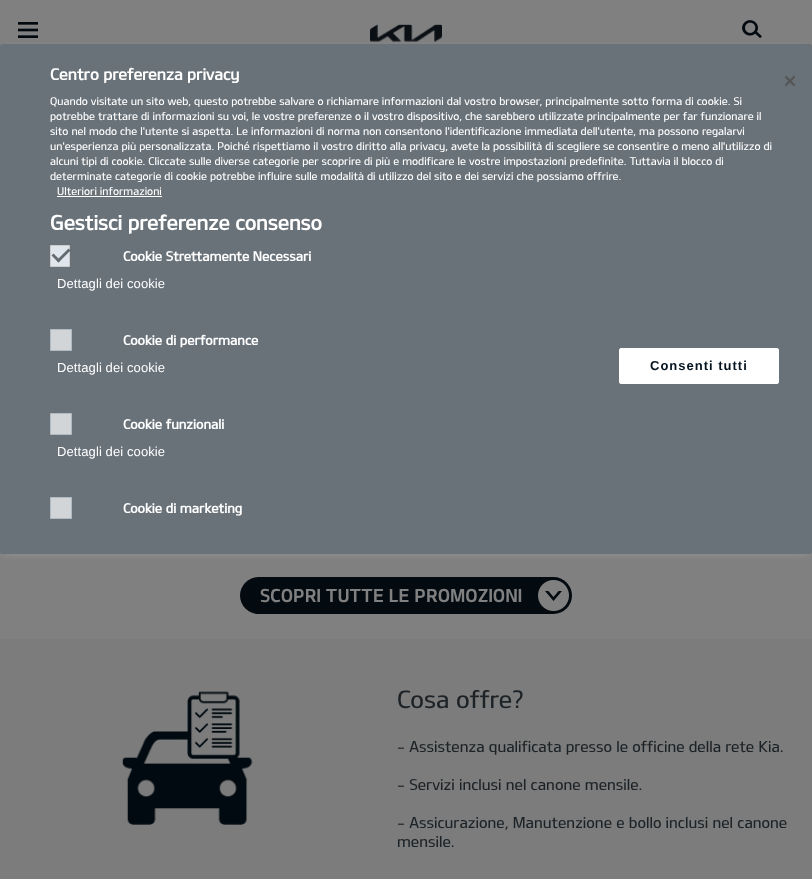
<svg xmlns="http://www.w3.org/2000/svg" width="812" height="879">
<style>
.a{font:bold 15.6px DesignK;fill:#fff}
.b{font:10.65px 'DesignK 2';fill:#fff}
.c{font:bold 20px DesignK;fill:#fff}
.d{font:bold 13px DesignK;fill:#fff}
.e{font:13px Liberation Sans;letter-spacing:0.1px;fill:#fff}
.f{font:bold 13px Liberation Sans;letter-spacing:1px;fill:#05141f}
.g{font:18px DesignK;fill:#808080}
.h{font:24px 'DesignK 2';fill:#1c2226}
.i{font:15px 'DesignK 2';fill:#1c2226}
</style>
<rect width="100%" height="100%" fill="#808080"/>
<image href="1.png" x="18" y="22" width="20" height="16"/>
<image href="2.png" x="370" y="24" width="72" height="18"/>
<image href="3.png" x="742" y="20" width="20" height="18"/>
<path fill="#999" filter="blur(5px)" d="M3 49h806v504H3z"/>
<rect fill="#697279" y="44" width="812" height="510" rx="2.5"/>
<path fill="#fff" d="M57 196h105v1H57z"/>
<path fill="#dfe6ed" stroke="#ccc" d="M50.5 245.5h19v21H50.5z"/>
<path fill="#2d373cb3" d="M68.5 248.5l2 2l-12 12l-2-2z"/>
<path fill="#626c71" d="M53.5 253.5l7 7l-2 2l-7-7z"/>
<path fill="#d2d5d7" stroke="#afbac2" d="M50.5 329.5h21v21H50.5z"/>
<path fill="#d2d5d7" stroke="#afbac2" d="M50.5 413.5h21v21H50.5z"/>
<path fill="#d2d5d7" stroke="#afbac2" d="M50.5 497.5h21v21H50.5z"/>
<rect fill="#fff" stroke="#fff" x="619.5" y="348.5" width="159" height="35" rx="1.5"/>
<image href="4.png" x="785" y="76" width="10" height="10"/>
<rect fill="#030a10" x="240" y="577" width="332" height="37" rx="18.5"/>
<image href="5.png" x="538" y="580" width="31" height="31"/>
<path fill="#7c7c7c" d="M0 639h812v240H0z"/>
<image href="6.png" x="122" y="691" width="131" height="134"/>
<text class="a" x="50" y="80">Centro preferenza privacy</text>
<text class="b" x="50" y="105">Quando visitate un sito web, questo potrebbe salvare o richiamare informazioni dal vostro browser, principalmente sotto forma di cookie. Si</text>
<text class="b" x="50" y="120">potrebbe trattare di informazioni su voi, le vostre preferenze o il vostro dispositivo, che sarebbero utilizzate principalmente per far funzionare il</text>
<text class="b" x="50" y="135">sito nel modo che l'utente si aspetta. Le informazioni di norma non consentono l'identificazione immediata dell'utente, ma possono regalarvi</text>
<text class="b" x="50" y="150">un'esperienza più personalizzata. Poiché rispettiamo il vostro diritto alla privacy, avete la possibilità di scegliere se consentire o meno all'utilizzo di</text>
<text class="b" x="50" y="165">alcuni tipi di cookie. Cliccate sulle diverse categorie per scoprire di più e modificare le vostre impostazioni predefinite. Tuttavia il blocco di</text>
<text class="b" x="50" y="180">determinate categorie di cookie potrebbe influire sulle modalità di utilizzo del sito e dei servizi che possiamo offrire.</text>
<text class="b" x="57" y="195">Ulteriori informazioni</text>
<text class="c" x="50" y="230">Gestisci preferenze consenso</text>
<text class="d" x="123" y="261">Cookie Strettamente Necessari</text>
<text class="e" x="57" y="288">Dettagli dei cookie</text>
<text class="d" x="123" y="345">Cookie di performance</text>
<text class="e" x="57" y="372">Dettagli dei cookie</text>
<text class="d" x="123" y="429">Cookie funzionali</text>
<text class="e" x="57" y="456">Dettagli dei cookie</text>
<text class="d" x="123" y="513">Cookie di marketing</text>
<text class="f" x="650" y="370">Consenti tutti</text>
<text class="g" x="260" y="602">SCOPRI TUTTE LE PROMOZIONI</text>
<text class="h" x="397" y="708">Cosa offre?</text>
<text class="i" x="397" y="752">- Assistenza qualificata presso le officine della rete Kia.</text>
<text class="i" x="397" y="790">- Servizi inclusi nel canone mensile.</text>
<text class="i" x="397" y="828">- Assicurazione, Manutenzione e bollo inclusi nel canone</text>
<text class="i" x="397" y="847">mensile.</text>
</svg>
